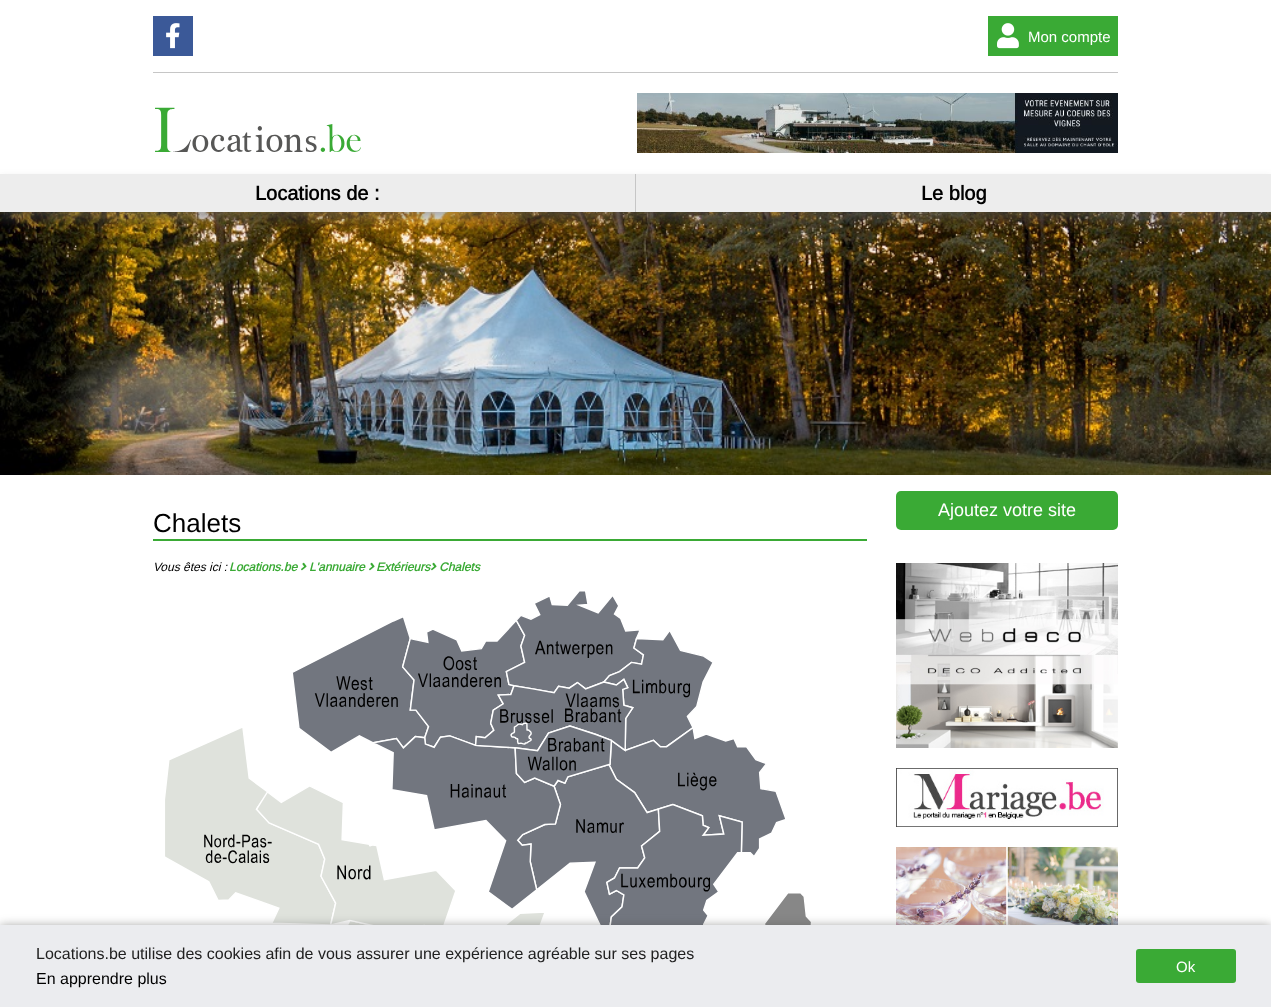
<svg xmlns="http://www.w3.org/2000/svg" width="1271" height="1007">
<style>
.a{font:15px Liberation Sans;fill:#fff}
.b{font:bold 20px Liberation Sans;fill:#000}
.c{font:18px Liberation Sans;fill:#fff}
.d{font:26px Liberation Sans;fill:#000}
.e{font:italic 12px Liberation Sans;fill:#000}
.f{font:italic bold 12px Liberation Sans;fill:#3aaa35}
.g{font:16px 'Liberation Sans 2';fill:#212121}
.h{font:16px 'Liberation Sans 2';fill:#000}
</style>
<rect width="100%" height="100%" fill="#fff"/>
<path fill="#c6c6c6" d="M153 72h965v1H153z"/>
<path fill="#3b5998" d="M153 16h40v40H153z"/>
<image href="1.png" x="166" y="23" width="14" height="26"/>
<path fill="#3aaa35" d="M988 16h130v40H988z"/>
<image href="2.png" x="997" y="23" width="22" height="26"/>
<image href="3.png" x="155" y="107" width="206" height="45"/>
<image href="4.png" x="637" y="93" width="481" height="60"/>
<image href="5.png" x="0" y="212" width="1271" height="263"/>
<path fill="#57575680" filter="blur(6px)" d="M0 182h1271v38H0z"/>
<path fill="#ededed" d="M0 174h1271v38H0z"/>
<path fill="#c6c6c6" d="M635 174h1v38H635z"/>
<rect fill="#3aaa35" x="896" y="491" width="222" height="39" rx="5"/>
<image href="6.png" x="896" y="563" width="222" height="185"/>
<image href="7.png" x="896" y="768" width="222" height="59"/>
<image href="8.png" x="896" y="847" width="222" height="78"/>
<path fill="#3aaa35" d="M153 539h714v2H153z"/>
<image href="9.png" x="301" y="562" width="6" height="9"/>
<image href="9.png" x="369" y="562" width="6" height="9"/>
<image href="9.png" x="431" y="562" width="6" height="9"/>
<image href="10.png" x="165" y="591" width="648" height="334"/>
<path fill="#57575680" filter="blur(5px)" d="M0 925h1271v82H0z"/>
<path fill="#ebecef" d="M0 925h1271v82H0z"/>
<rect fill="#3aaa35" x="1136" y="949" width="100" height="34" rx="3"/>
<text class="a" x="1028" y="42">Mon compte</text>
<text class="b" x="255" y="200">Locations de :</text>
<text class="b" x="921" y="200">Le blog</text>
<text class="c" x="938" y="516">Ajoutez votre site</text>
<text class="d" x="153" y="532">Chalets</text>
<text class="e" x="153" y="571">Vous êtes ici :</text>
<text class="f" x="229" y="571">Locations.be</text>
<text class="f" x="309" y="571">L'annuaire</text>
<text class="f" x="376" y="571">Extérieurs</text>
<text class="f" x="439" y="571">Chalets</text>
<text class="g" x="36" y="959">Locations.be utilise des cookies afin de vous assurer une expérience agréable sur ses pages</text>
<text class="h" x="36" y="984">En apprendre plus</text>
<text class="a" x="1176" y="972">Ok</text>
</svg>
